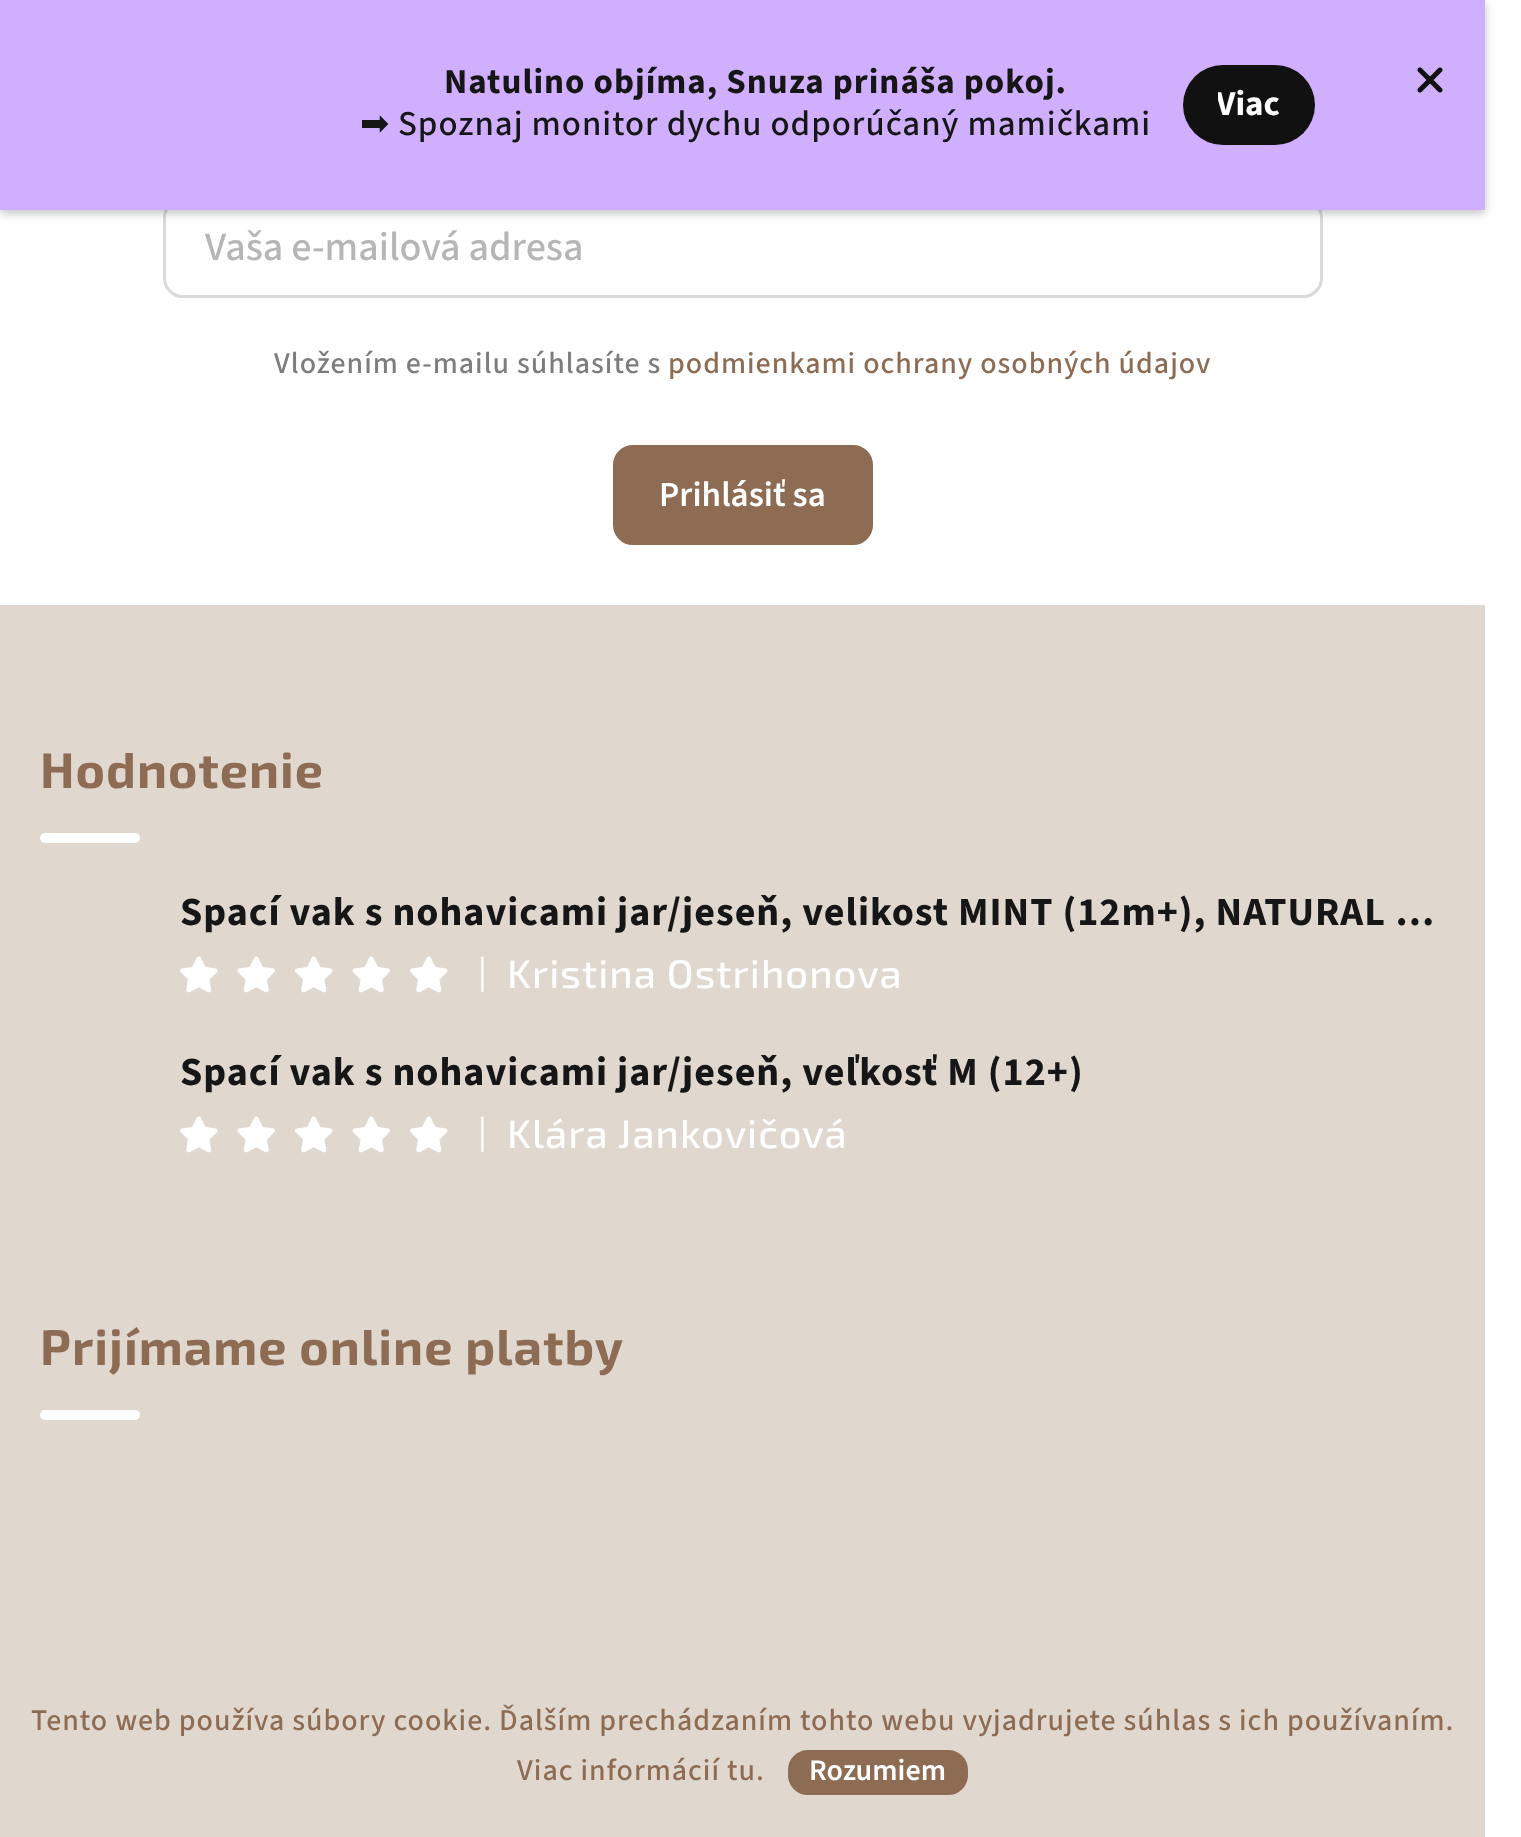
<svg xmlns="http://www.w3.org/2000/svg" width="1521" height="1837">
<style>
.a{font:bold 35px 'Source Sans 3';letter-spacing:1px;fill:#161616}
.b{font:35px DejaVu Sans;letter-spacing:1px;fill:#161616}
.c{font:500 35px 'Source Sans 3';letter-spacing:1px;fill:#161616}
.d{font:bold 35px 'Source Sans 3';fill:#fff}
.e{font:500 40.25px 'Source Sans 3';fill:#b6b6b6}
.f{font:500 30px 'Source Sans 3';letter-spacing:1px;fill:#7d7d7d}
.g{font:500 30px 'Source Sans 3';letter-spacing:1px;fill:#8d6c53}
.h{font:600 35px 'Source Sans 3';fill:#fff}
.i{font:bold 50px 'Exo 2';letter-spacing:1px;fill:#8d6c53}
.j{font:bold 40px 'Source Sans 3';letter-spacing:1px;fill:#161616}
.k{font:500 35px 'Source Sans 3';letter-spacing:1px;fill:#fff}
.l{font:500 40px 'Exo 2';letter-spacing:1px;fill:#fff}
.m{font:600 30px 'Source Sans 3';fill:#fff}
</style>
<defs>
<clipPath id="clip1"><path d="M1218 83h62v45H1218z"/></clipPath>
</defs>
<rect width="100%" height="100%" fill="#fff"/>
<rect fill="none" stroke="#dadada" stroke-width="3" x="164.5" y="199.5" width="1157" height="97" rx="18.5"/>
<path fill="#00000040" filter="blur(5px)" d="M0 3h1485v210H0z"/>
<path fill="#d1afff" d="M0 0h1485v210H0z"/>
<image href="1.png" x="1417" y="67" width="26" height="26"/>
<rect fill="#111" x="1183" y="65" width="132" height="80" rx="40"/>
<rect fill="#8d6c53" stroke="#8d6c53" stroke-width="3" x="614.5" y="446.5" width="257" height="97" rx="18.5"/>
<path fill="#e0d7cf" d="M0 605h1485v1232H0z"/>
<rect fill="#fff" x="40" y="833" width="100" height="10" rx="5"/>
<image href="2.png" x="180" y="956" width="38" height="37"/>
<image href="3.png" x="237" y="956" width="38" height="37"/>
<image href="2.png" x="295" y="956" width="38" height="37"/>
<image href="3.png" x="352" y="956" width="38" height="37"/>
<image href="2.png" x="410" y="956" width="38" height="37"/>
<image href="2.png" x="180" y="1116" width="38" height="37"/>
<image href="3.png" x="237" y="1116" width="38" height="37"/>
<image href="2.png" x="295" y="1116" width="38" height="37"/>
<image href="3.png" x="352" y="1116" width="38" height="37"/>
<image href="2.png" x="410" y="1116" width="38" height="37"/>
<rect fill="#fff" x="40" y="1410" width="100" height="10" rx="5"/>
<rect fill="#8d6c53" stroke="#8d6c53" stroke-width="3" x="789.5" y="1751.5" width="177" height="42" rx="18.5"/>
<text class="a" x="444" y="93">Natulino objíma, Snuza prináša pokoj.</text>
<text class="b" x="360" y="135">➡</text>
<text class="c" x="398" y="135">Spoznaj monitor dychu odporúčaný mamičkami</text>
<g clip-path="url(#clip1)">
<text class="d" x="1216" y="115">Viac</text>
</g>
<text class="e" x="205" y="260">Vaša e-mailová adresa</text>
<text class="f" x="274" y="373">Vložením e-mailu súhlasíte s</text>
<text class="g" x="668" y="373">podmienkami ochrany osobných údajov</text>
<text class="h" x="659" y="506">Prihlásiť sa</text>
<text class="i" x="40" y="788">Hodnotenie</text>
<text class="j" x="180" y="925">Spací vak s nohavicami jar/jeseň, velikost MINT (12m+), NATURAL …</text>
<text class="k" x="478" y="983">|</text>
<text class="l" x="507" y="988">Kristina Ostrihonova</text>
<text class="j" x="180" y="1085">Spací vak s nohavicami jar/jeseň, veľkosť M (12+)</text>
<text class="k" x="478" y="1143">|</text>
<text class="l" x="507" y="1148">Klára Jankovičová</text>
<text class="i" x="40" y="1365">Prijímame online platby</text>
<text class="g" x="31" y="1730">Tento web používa súbory cookie. Ďalším prechádzaním tohto webu vyjadrujete súhlas s ich používaním.</text>
<text class="g" x="517" y="1780">Viac informácií tu.</text>
<text class="m" x="809" y="1780">Rozumiem</text>
</svg>
